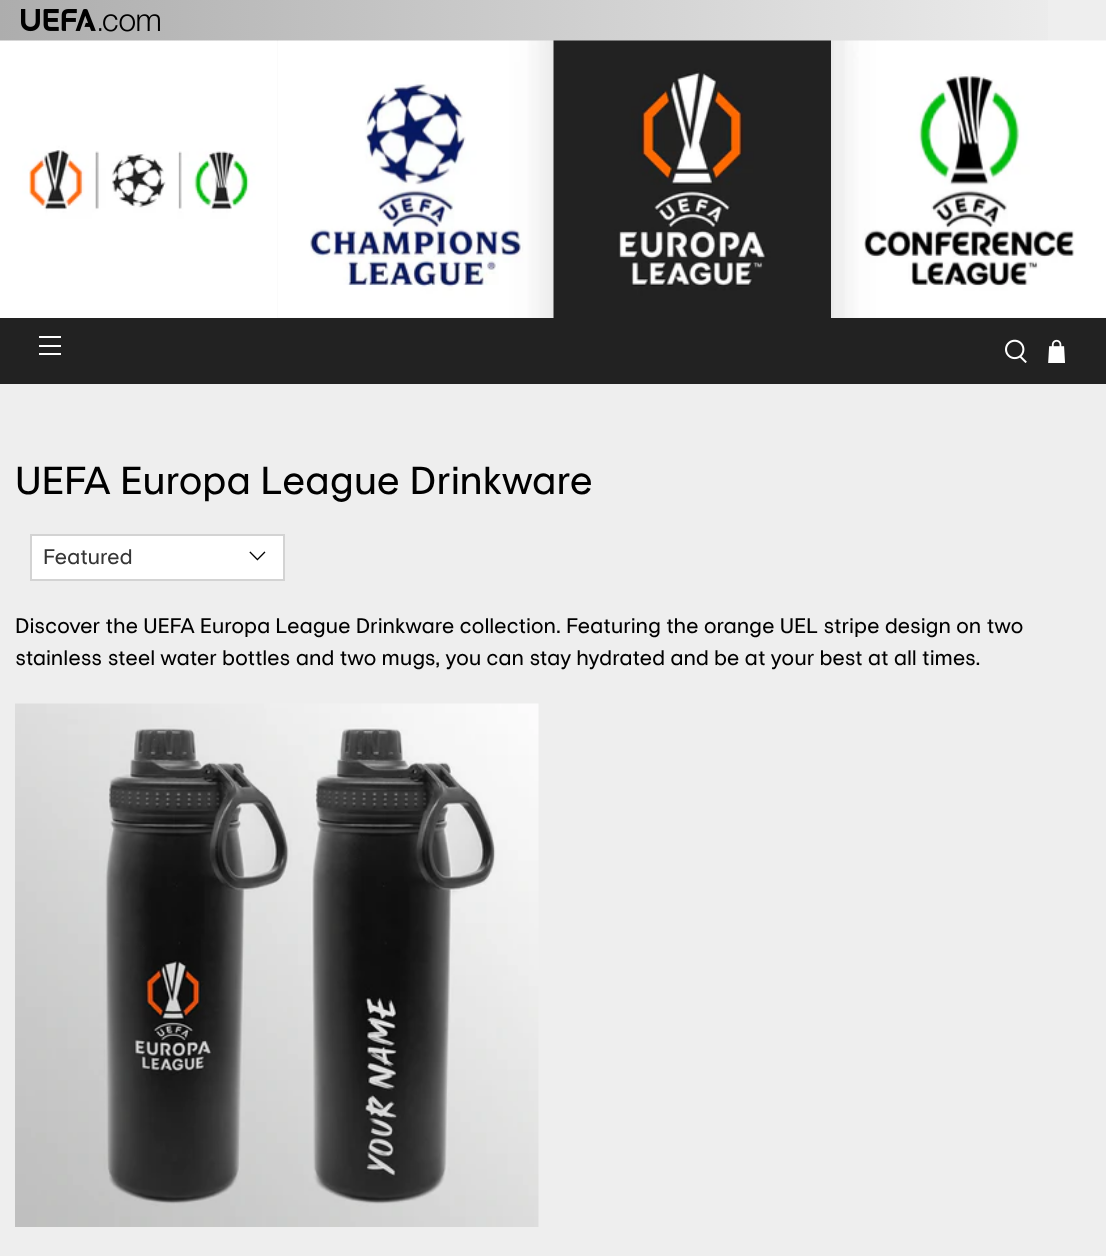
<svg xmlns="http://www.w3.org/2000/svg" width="1106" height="1256">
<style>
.a{font:39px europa;fill:#000}
.b{font:21px europa;fill:#363636}
.c{font:21px europa;fill:#000}
</style>
<defs>
<linearGradient id="g1" gradientUnits="userSpaceOnUse" x1="0" y1="20" x2="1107" y2="20"><stop offset="0" stop-color="#adadad"/><stop offset="1" stop-color="#efefef"/></linearGradient>
</defs>
<rect width="100%" height="100%" fill="#eee"/>
<path fill="url(#g1)" d="M0 0h1048v41H0z"/>
<image href="1.png" x="21" y="9" width="139" height="23"/>
<image href="2.png" x="0" y="40" width="278" height="278"/>
<image href="3.png" x="277" y="40" width="277" height="278"/>
<image href="4.png" x="553" y="40" width="278" height="278"/>
<image href="5.png" x="831" y="40" width="275" height="278"/>
<path fill="#222" d="M0 318h1106v66H0z"/>
<path fill="#fff" d="M39 336h22v2H39z"/>
<path fill="#fff" d="M39 345h22v2H39z"/>
<path fill="#fff" d="M39 353h22v2H39z"/>
<image href="6.png" x="1005" y="339" width="22" height="24"/>
<image href="7.png" x="1048" y="339" width="17" height="24"/>
<path fill="#fff" stroke="#d3d3d3" stroke-width="2" d="M31 535h253v45H31z"/>
<image href="8.png" x="249" y="551" width="17" height="10"/>
<image href="9.png" x="15" y="703" width="524" height="524"/>
<text class="a" x="15" y="494">UEFA Europa League Drinkware</text>
<text class="b" x="43" y="564">Featured</text>
<text class="c" x="15" y="633">Discover the UEFA Europa League Drinkware collection. Featuring the orange UEL stripe design on two</text>
<text class="c" x="15" y="665">stainless steel water bottles and two mugs, you can stay hydrated and be at your best at all times.</text>
</svg>
